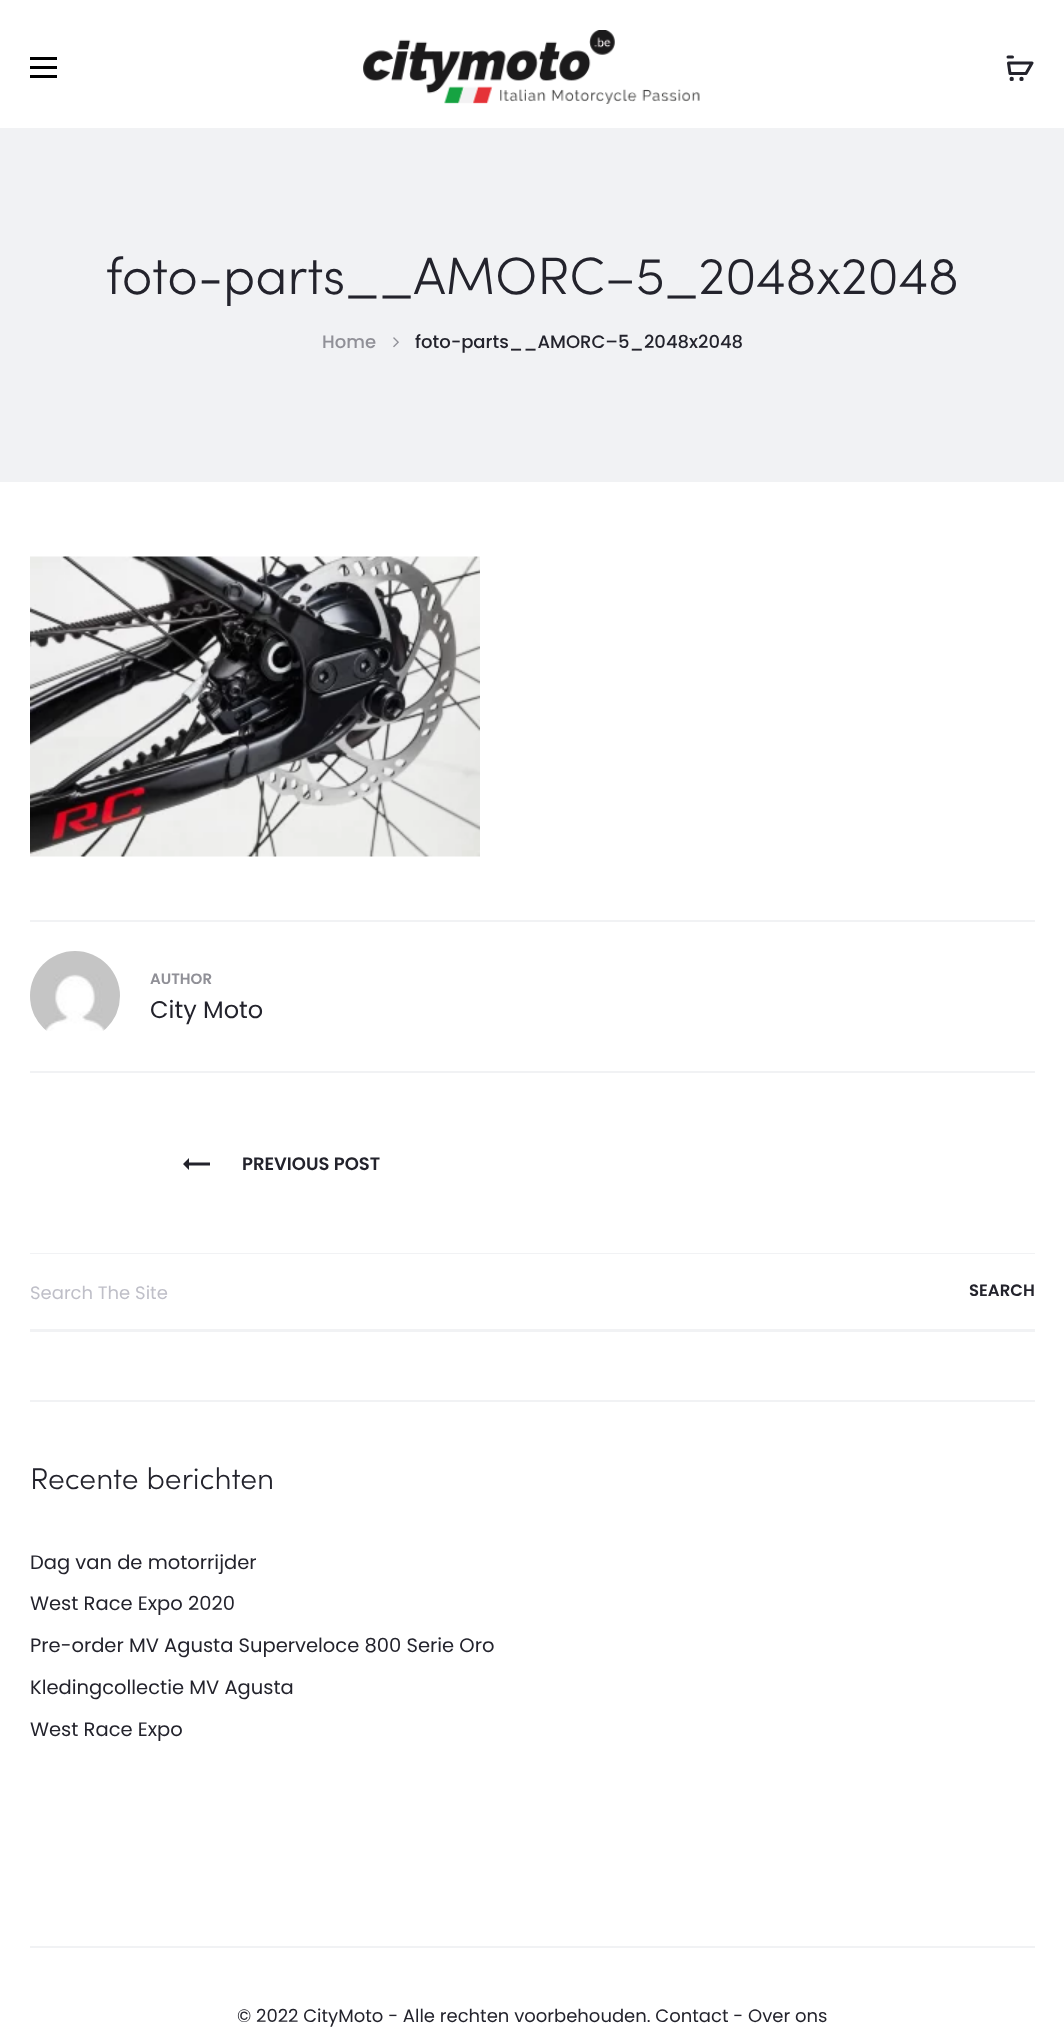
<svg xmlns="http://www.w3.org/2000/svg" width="1064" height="2027">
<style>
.a{font:300 52.5px Sofia;fill:#23232c}
.b{font:500 18px Poppins;fill:#909097}
.c{font:500 18px Poppins;fill:#23232c}
.d{font:600 15px Poppins;fill:#909097}
.e{font:24px Poppins;fill:#23232c}
.f{font:600 18px Poppins;fill:#23232c}
.g{font:18px Poppins;fill:#bfbfc8}
.h{font:600 16.5px Poppins;fill:#23232c}
.i{font:300 30px Sofia;fill:#23232c}
.j{font:19.5px Poppins;fill:#23232c}
.k{font:18px Poppins;fill:#23232c}
</style>
<rect width="100%" height="100%" fill="#fff"/>
<path fill="#000" d="M30 66h27v3H30z"/>
<path fill="#000" d="M30 57h27v3H30z"/>
<path fill="#000" d="M30 75h27v3H30z"/>
<image href="1.png" x="363" y="30" width="337" height="74"/>
<path fill="none" stroke="#23232c" stroke-width="3" stroke-linejoin="round" d="M1008.5 63l1.5 10.5h16l6-10.5z"/>
<circle fill="#23232c" cx="1011.7" cy="78.9" r="2.2"/>
<circle fill="#23232c" cx="1021.5" cy="78.9" r="2.2"/>
<path fill="none" stroke="#23232c" stroke-width="3" stroke-linecap="round" d="M1008 57h4.5"/>
<path fill="#f1f2f4" d="M0 128h1064v354H0z"/>
<image href="2.png" x="393" y="337" width="6" height="11"/>
<image href="3.png" x="30" y="556" width="450" height="301"/>
<path fill="#f1f2f4" d="M30 920h1005v2H30z"/>
<image href="4.png" x="30" y="951" width="90" height="80"/>
<path fill="#f1f2f4" d="M30 1071h1005v2H30z"/>
<path fill="#f1f2f4" d="M30 1253h1005v1H30z"/>
<path fill="#23232c" d="M189 1165.5h21v-3h-21v-4.5l-6 6l6 6z"/>
<path fill="#f1f2f4" d="M30 1400h1005v2H30z"/>
<path fill="#f1f2f4" d="M30 1329h1005v3H30z"/>
<path fill="#f1f2f4" d="M30 1946h1005v2H30z"/>
<text class="a" x="106" y="294">foto-parts__AMORC–5_2048x2048</text>
<text class="b" x="322" y="348">Home</text>
<text class="c" x="415" y="348">foto-parts__AMORC–5_2048x2048</text>
<text class="d" x="150" y="984">AUTHOR</text>
<text class="e" x="150" y="1018">City Moto</text>
<text class="f" x="242" y="1170">PREVIOUS POST</text>
<text class="g" x="30" y="1299">Search The Site</text>
<text class="h" x="969" y="1296">SEARCH</text>
<text class="i" x="30" y="1489">Recente berichten</text>
<text class="j" x="30" y="1569">Dag van de motorrijder</text>
<text class="j" x="30" y="1610">West Race Expo 2020</text>
<text class="j" x="30" y="1652">Pre-order MV Agusta Superveloce 800 Serie Oro</text>
<text class="j" x="30" y="1694">Kledingcollectie MV Agusta</text>
<text class="j" x="30" y="1736">West Race Expo</text>
<text class="k" x="237" y="2022">© 2022 CityMoto - Alle rechten voorbehouden. Contact - Over ons</text>
</svg>
